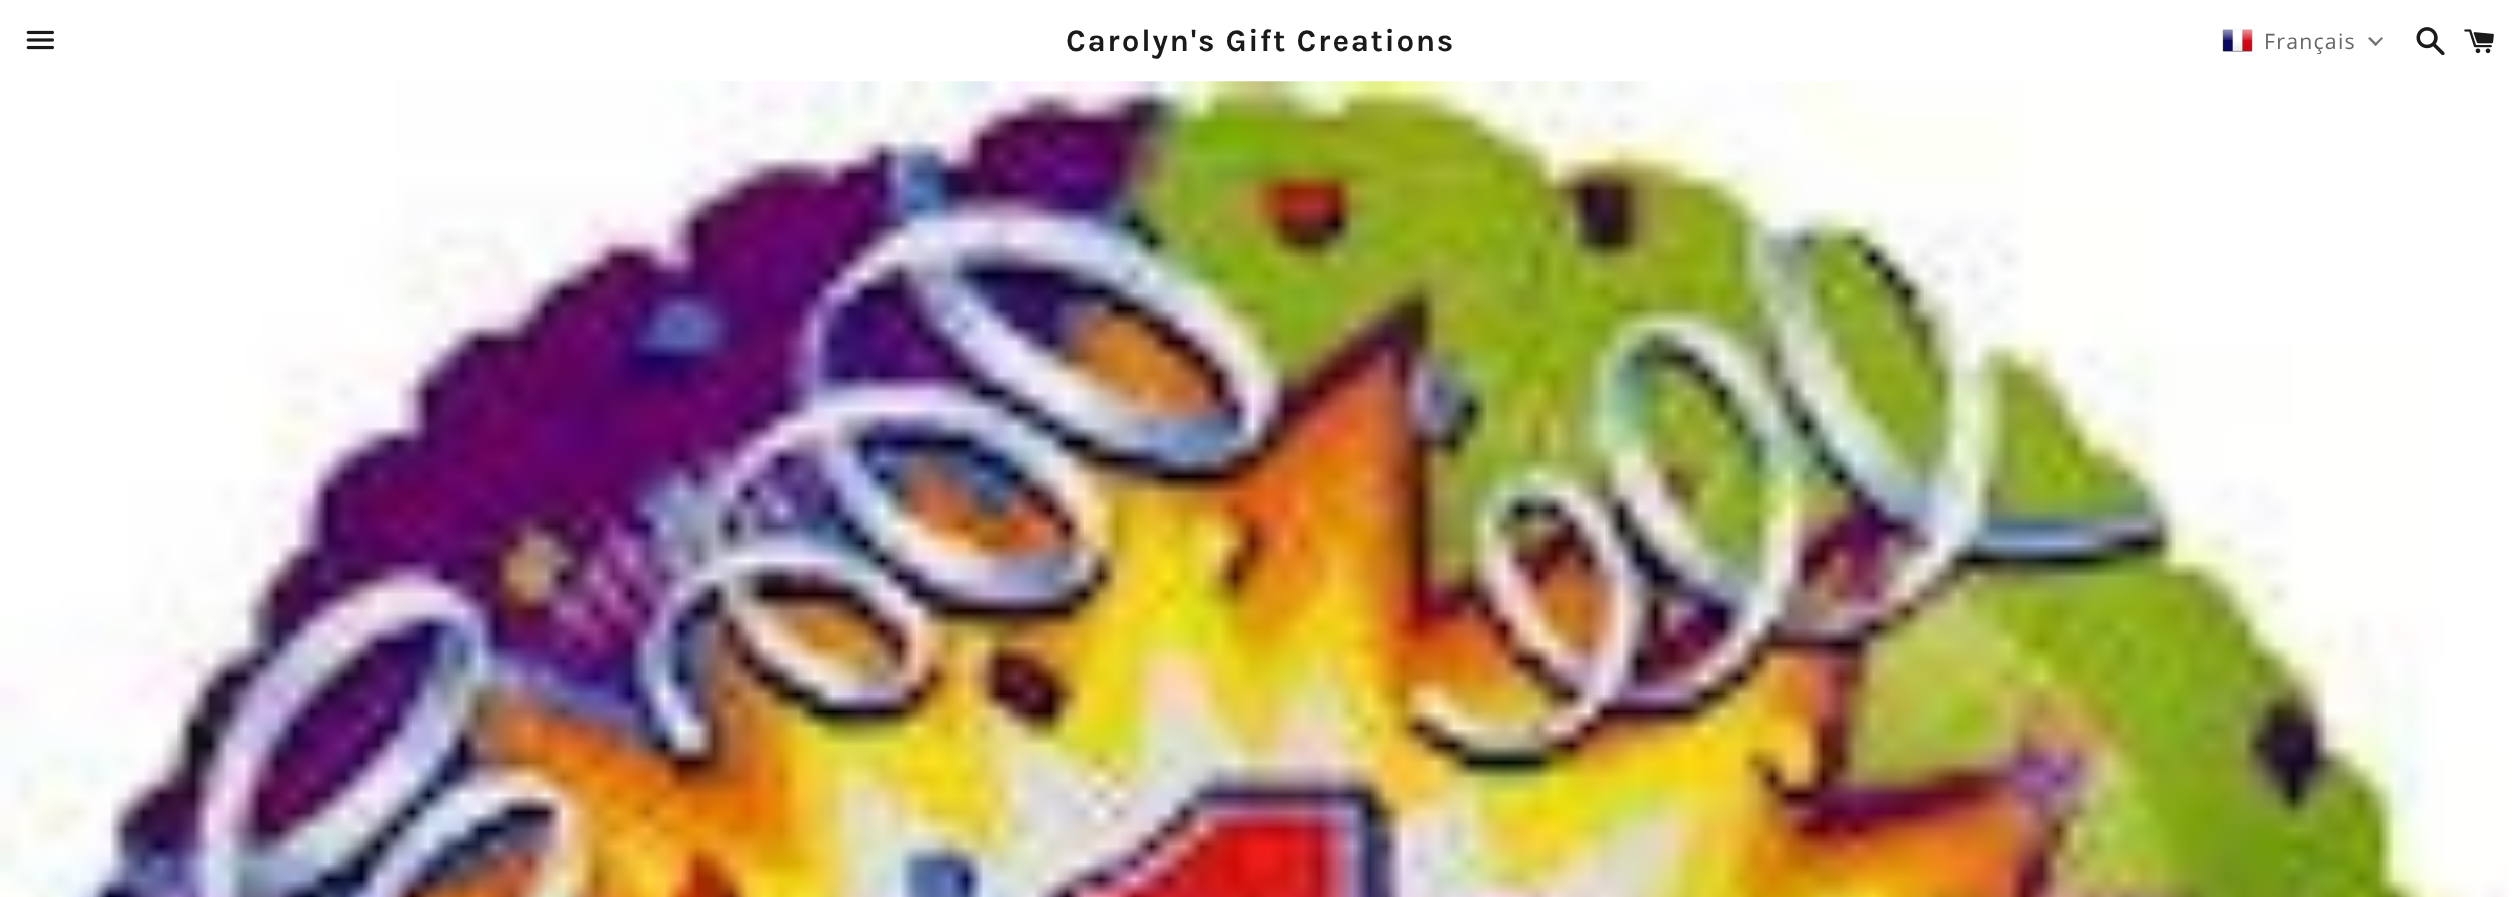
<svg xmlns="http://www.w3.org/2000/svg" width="2520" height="897">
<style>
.a{font:bold 31.25px Karla;letter-spacing:1.6px;fill:#1a1a1a}
.b{font:21.25px Open Sans;letter-spacing:1.25px;fill:#666}
</style>
<rect width="100%" height="100%" fill="#fff"/>
<image href="1.png" x="26" y="30" width="28" height="20"/>
<image href="2.png" x="2222" y="29" width="31" height="23"/>
<path fill="#747474" d="M2381.5 37l1.5 1.5l-7.5 7.5l-1.5-1.5z"/>
<path fill="#747474" d="M2370 37l7.5 7.5l-2 1.5l-7.5-7.5z"/>
<image href="3.png" x="2416" y="27" width="29" height="29"/>
<image href="4.png" x="2464" y="29" width="30" height="25"/>
<image href="5.png" x="0" y="81" width="2508" height="816"/>
<text class="a" x="1066" y="51">Carolyn's Gift Creations</text>
<text class="b" x="2264" y="49">Français</text>
</svg>
